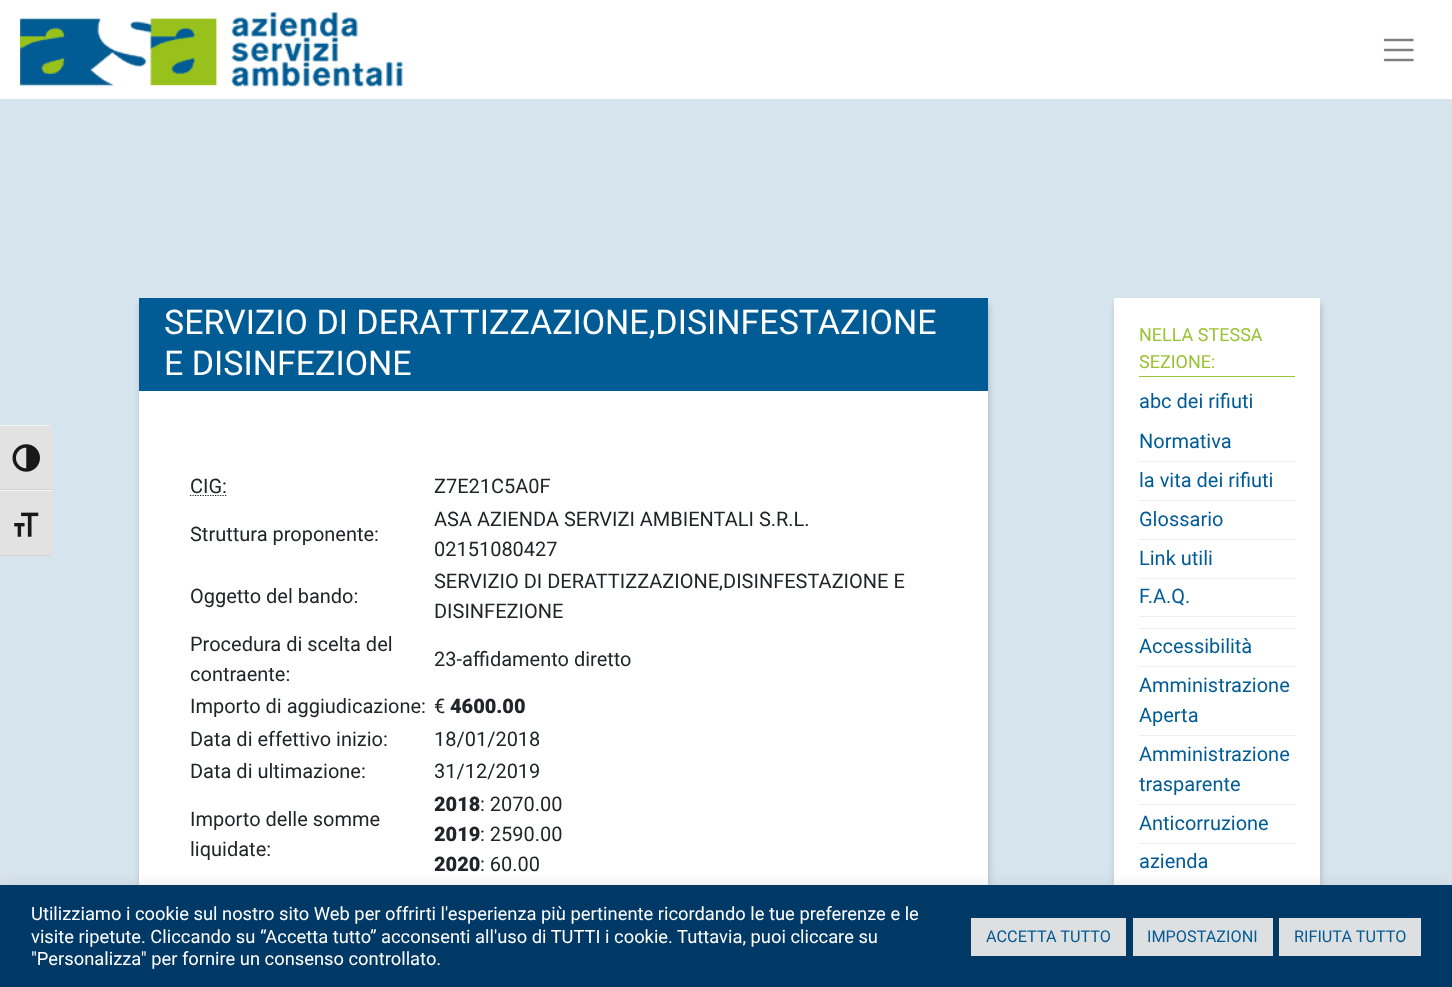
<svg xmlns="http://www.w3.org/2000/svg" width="1452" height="987">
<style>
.a{font:34px Roboto;fill:#fff}
.b{font:20px Roboto;fill:#212529}
.c{font:900 20px Roboto;fill:#212529}
.d{font:18px Roboto;fill:#9bc134}
.e{font:20px Roboto;fill:#015b94}
.f{font:18.35px Roboto;fill:#fff}
.g{font:16.25px Roboto;fill:#015b94}
</style>
<rect width="100%" height="100%" fill="#d6e4ee"/>
<path fill="#fff" d="M0 0h1452v99H0z"/>
<image href="1.png" x="20" y="12" width="383" height="75"/>
<path fill="none" stroke="#808080" stroke-width="2.5" stroke-linecap="round" d="M1385 40h27.5m-27.5 10h27.5m-27.5 10h27.5"/>
<path fill="#e2e2e2" d="M0 425h48c3 0 5 2 5 5v60h-53z"/>
<path fill="#f5f5f5" d="M0 425v1h48c2 0 4 2 4 4c0-3-2-5-4-5z"/>
<path fill="#d2d2d2" d="M0 489h52v1H0z"/>
<image href="2.png" x="12" y="444" width="28" height="28"/>
<path fill="#e2e2e2" d="M0 490h53v61c0 3-2 5-5 5h-48z"/>
<path fill="#f5f5f5" d="M0 490h52v1H0z"/>
<path fill="#d2d2d2" d="M48 556c2 0 4-2 4-5c0 2-2 4-4 4h-48v1z"/>
<image href="3.png" x="14" y="512" width="25" height="25"/>
<path fill="#0000002e" filter="blur(3px)" d="M140 304h849v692H140z"/>
<path fill="#fff" d="M139 391h849v494H139z"/>
<path fill="#015b94" d="M139 298h849v93H139z"/>
<path fill="none" stroke="#212529" stroke-width="1.2" stroke-dasharray="1.25 1.25" d="M190 495.5h36.5"/>
<path fill="#dee2e6" d="M1053 248h1v637H1053z"/>
<path fill="#0000002e" filter="blur(3px)" d="M1115 304h206v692H1115z"/>
<path fill="#fff" d="M1114 298h206v587H1114z"/>
<path fill="#9bc134" d="M1139 376h156v1H1139z"/>
<path fill="#eee" d="M1139 628h156v1H1139z"/>
<path fill="#eee" d="M1139 461h156v1H1139z"/>
<path fill="#eee" d="M1139 500h156v1H1139z"/>
<path fill="#eee" d="M1139 539h156v1H1139z"/>
<path fill="#eee" d="M1139 578h156v1H1139z"/>
<path fill="#eee" d="M1139 616h156v1H1139z"/>
<path fill="#eee" d="M1139 666h156v1H1139z"/>
<path fill="#eee" d="M1139 735h156v1H1139z"/>
<path fill="#eee" d="M1139 804h156v1H1139z"/>
<path fill="#eee" d="M1139 843h156v1H1139z"/>
<path fill="#acabab4d" filter="blur(6px)" d="M0 884h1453v102H0z"/>
<path fill="#003866" d="M0 885h1452v102H0z"/>
<path fill="#dedfe0" d="M971 918h155v38H971z"/>
<path fill="#dedfe0" d="M1133 918h140v38H1133z"/>
<path fill="#dedfe0" d="M1279 918h142v38H1279z"/>
<text class="a" x="164" y="334">SERVIZIO DI DERATTIZZAZIONE,DISINFESTAZIONE</text>
<text class="a" x="164" y="375">E DISINFEZIONE</text>
<text class="b" x="190" y="493">CIG:</text>
<text class="b" x="434" y="493">Z7E21C5A0F</text>
<text class="b" x="190" y="541">Struttura proponente:</text>
<text class="b" x="434" y="526">ASA AZIENDA SERVIZI AMBIENTALI S.R.L.</text>
<text class="b" x="434" y="556">02151080427</text>
<text class="b" x="190" y="603">Oggetto del bando:</text>
<text class="b" x="434" y="588">SERVIZIO DI DERATTIZZAZIONE,DISINFESTAZIONE E</text>
<text class="b" x="434" y="618">DISINFEZIONE</text>
<text class="b" x="190" y="651">Procedura di scelta del</text>
<text class="b" x="190" y="681">contraente:</text>
<text class="b" x="434" y="666">23-affidamento diretto</text>
<text class="b" x="190" y="713">Importo di aggiudicazione:</text>
<text class="b" x="434" y="713">€</text>
<text class="c" x="450" y="713">4600.00</text>
<text class="b" x="190" y="746">Data di effettivo inizio:</text>
<text class="b" x="434" y="746">18/01/2018</text>
<text class="b" x="190" y="778">Data di ultimazione:</text>
<text class="b" x="434" y="778">31/12/2019</text>
<text class="b" x="190" y="826">Importo delle somme</text>
<text class="b" x="190" y="856">liquidate:</text>
<text class="c" x="434" y="811">2018</text>
<text class="b" x="480" y="811">: 2070.00</text>
<text class="c" x="434" y="841">2019</text>
<text class="b" x="480" y="841">: 2590.00</text>
<text class="c" x="434" y="871">2020</text>
<text class="b" x="480" y="871">: 60.00</text>
<text class="d" x="1139" y="341">NELLA STESSA</text>
<text class="d" x="1139" y="368">SEZIONE:</text>
<text class="e" x="1139" y="408">abc dei rifiuti</text>
<text class="e" x="1139" y="448">Normativa</text>
<text class="e" x="1139" y="487">la vita dei rifiuti</text>
<text class="e" x="1139" y="526">Glossario</text>
<text class="e" x="1139" y="565">Link utili</text>
<text class="e" x="1139" y="603">F.A.Q.</text>
<text class="e" x="1139" y="653">Accessibilità</text>
<text class="e" x="1139" y="692">Amministrazione</text>
<text class="e" x="1139" y="722">Aperta</text>
<text class="e" x="1139" y="761">Amministrazione</text>
<text class="e" x="1139" y="791">trasparente</text>
<text class="e" x="1139" y="830">Anticorruzione</text>
<text class="e" x="1139" y="868">azienda</text>
<text class="f" x="31" y="920">Utilizziamo i cookie sul nostro sito Web per offrirti l'esperienza più pertinente ricordando le tue preferenze e le</text>
<text class="f" x="31" y="943">visite ripetute. Cliccando su “Accetta tutto” acconsenti all'uso di TUTTI i cookie. Tuttavia, puoi cliccare su</text>
<text class="f" x="31" y="965">"Personalizza" per fornire un consenso controllato.</text>
<text class="g" x="986" y="942">ACCETTA TUTTO</text>
<text class="g" x="1147" y="942">IMPOSTAZIONI</text>
<text class="g" x="1294" y="942">RIFIUTA TUTTO</text>
</svg>
